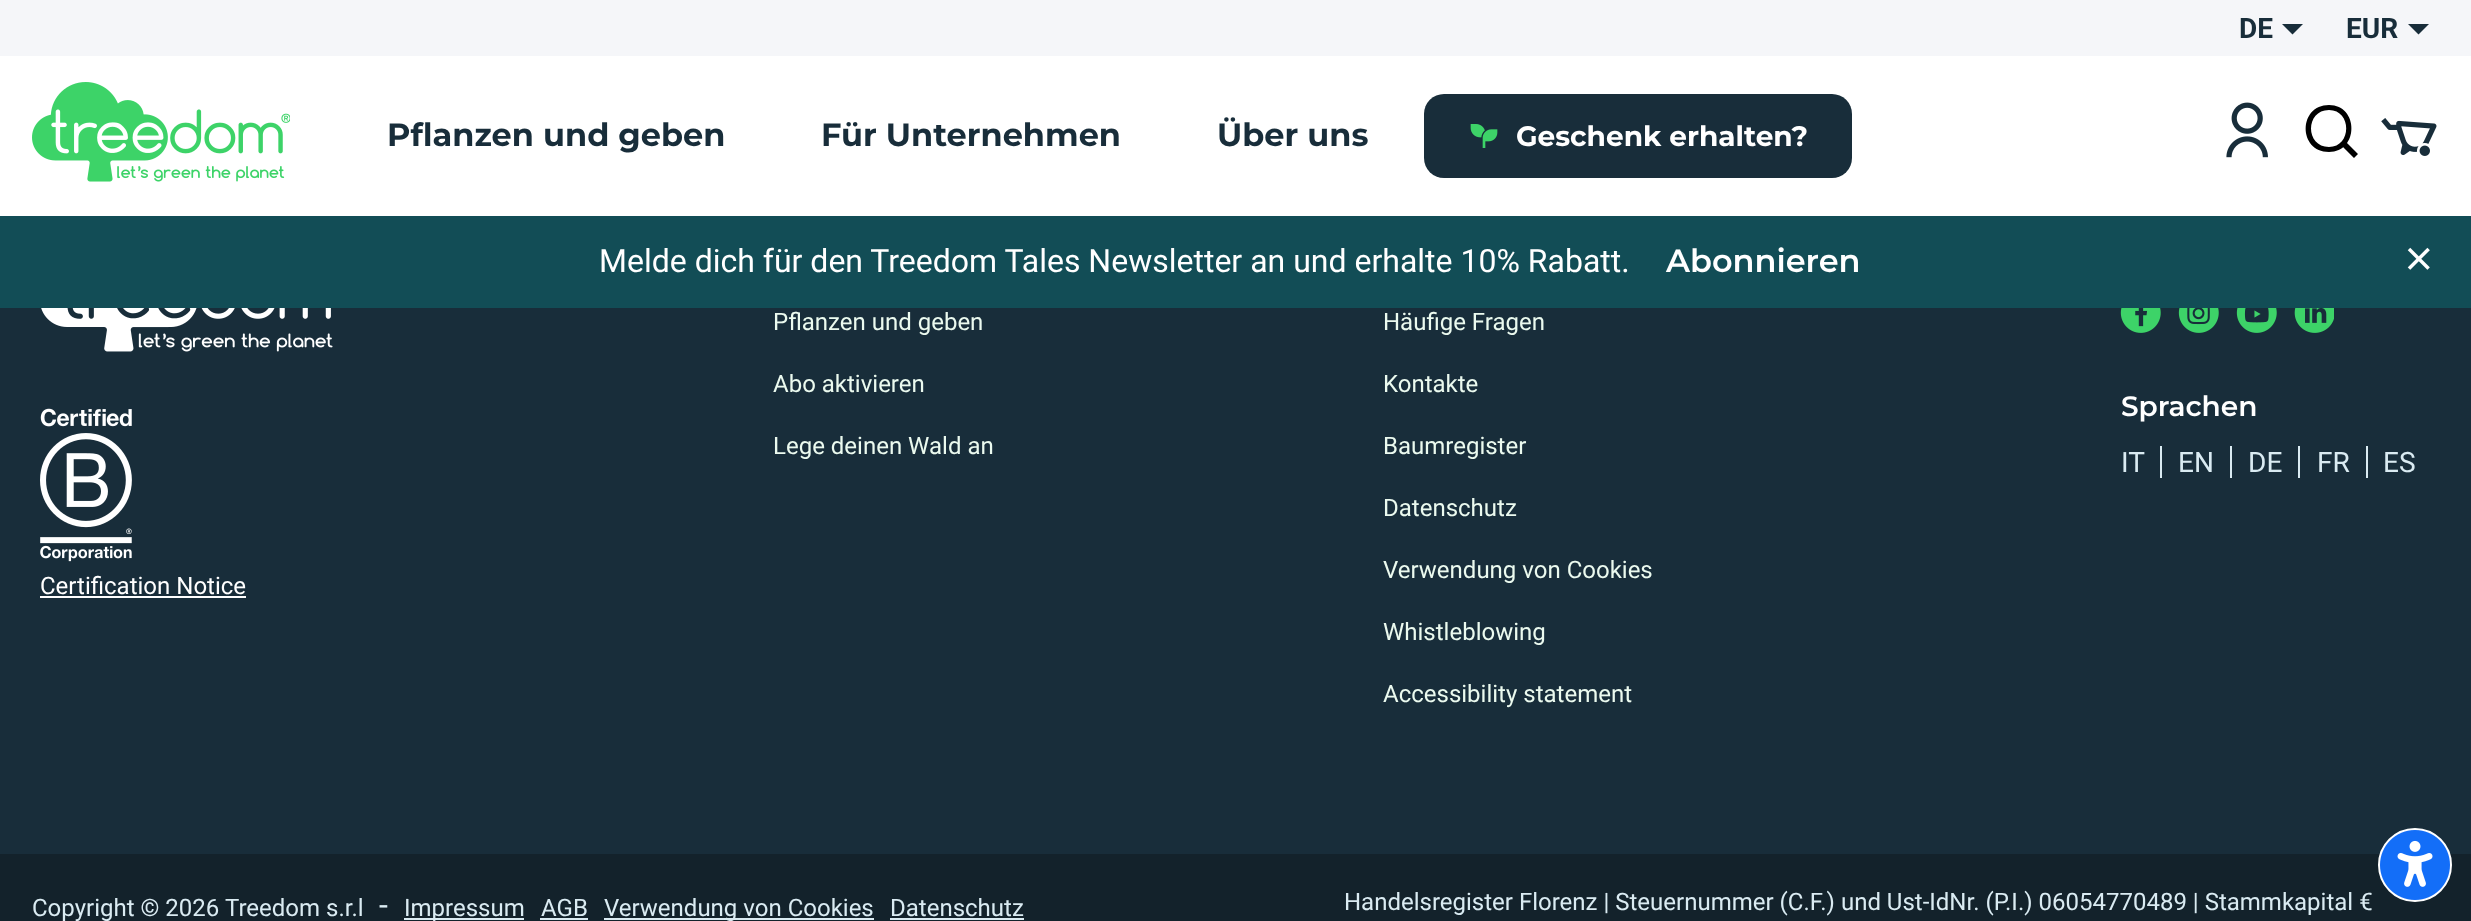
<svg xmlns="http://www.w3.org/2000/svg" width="2471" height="921">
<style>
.a{font:bold 28px Roboto;fill:#182d3a}
.b{font:bold 32px Montserrat;fill:#182d3a}
.c{font:bold 28px Montserrat;fill:#fff}
.d{font:32px Roboto;fill:#fff}
.e{font:600 32px Montserrat;fill:#fff}
.f{font:24px Roboto;fill:#ebfaef}
.g{font:600 28px Montserrat;fill:#fff}
.h{font:28px Roboto;fill:#daebf2}
.i{font:24px Roboto;fill:#fff}
.j{font:24px Roboto;fill:#daebf2}
.k{font:32px Roboto;fill:#daebf2}
</style>
<rect width="100%" height="100%" fill="#182d3a"/>
<path fill="#f5f6f9" d="M0 0h2471v56H0z"/>
<path fill="#182d3a" d="M2292.5 34.5l-10.5-10.5h21z"/>
<path fill="#182d3a" d="M2418.5 34.5l-10.5-10.5h21z"/>
<path fill="#fff" d="M0 56h2471v160H0z"/>
<image href="1.png" x="32" y="82" width="258" height="100"/>
<rect fill="#182d3a" x="1424" y="94" width="428" height="84" rx="20"/>
<image href="2.png" x="1470" y="124" width="28" height="24"/>
<image href="3.png" x="2226" y="102" width="42" height="56"/>
<path fill="#000" d="M2329 105c30 0 30 47 0 47c-31 0-31-47 0-47zm0 42c23 0 23-37 0-37c-24 0-24 37 0 37zm18-4l11 11l-4 4l-11-11z"/>
<image href="4.png" x="2381" y="118" width="56" height="38"/>
<path fill="#124d56" d="M0 216h2471v92H0z"/>
<image href="5.png" x="2407" y="247" width="23" height="23"/>
<image href="6.png" x="2120" y="308" width="41" height="25"/>
<image href="7.png" x="2178" y="308" width="41" height="25"/>
<image href="8.png" x="2236" y="308" width="41" height="25"/>
<image href="9.png" x="2294" y="308" width="40" height="25"/>
<path fill="#daebf2" d="M2160 446h2v32H2160z"/>
<path fill="#daebf2" d="M2230 446h2v32H2230z"/>
<path fill="#daebf2" d="M2298 446h2v32H2298z"/>
<path fill="#daebf2" d="M2366 446h2v32H2366z"/>
<image href="10.png" x="41" y="308" width="292" height="44"/>
<image href="11.png" x="40" y="408" width="92" height="154"/>
<path fill="#fff" d="M40 596h206v2H40z"/>
<path fill="#13222b" d="M0 854h2471v67H0z"/>
<path fill="#daebf2" d="M404 918h120v2H404z"/>
<path fill="#daebf2" d="M540 918h48v2H540z"/>
<path fill="#daebf2" d="M604 918h270v2H604z"/>
<path fill="#daebf2" d="M890 918h134v2H890z"/>
<circle fill="#fff" stroke="#fff" stroke-width="2" cx="2415" cy="865" r="36"/>
<image href="12.png" x="2380" y="830" width="70" height="70"/>
<text class="a" x="2239" y="38">DE</text>
<text class="a" x="2346" y="38">EUR</text>
<text class="b" x="387" y="146">Pflanzen und geben</text>
<text class="b" x="821" y="146">Für Unternehmen</text>
<text class="b" x="1217" y="146">Über uns</text>
<text class="c" x="1516" y="146">Geschenk erhalten?</text>
<text class="d" x="599" y="272">Melde dich für den Treedom Tales Newsletter an und erhalte 10% Rabatt.</text>
<text class="e" x="1666" y="272">Abonnieren</text>
<text class="f" x="773" y="330">Pflanzen und geben</text>
<text class="f" x="773" y="392">Abo aktivieren</text>
<text class="f" x="773" y="454">Lege deinen Wald an</text>
<text class="f" x="1383" y="330">Häufige Fragen</text>
<text class="f" x="1383" y="392">Kontakte</text>
<text class="f" x="1383" y="454">Baumregister</text>
<text class="f" x="1383" y="516">Datenschutz</text>
<text class="f" x="1383" y="578">Verwendung von Cookies</text>
<text class="f" x="1383" y="640">Whistleblowing</text>
<text class="f" x="1383" y="702">Accessibility statement</text>
<text class="g" x="2121" y="416">Sprachen</text>
<text class="h" x="2121" y="472">IT</text>
<text class="h" x="2178" y="472">EN</text>
<text class="h" x="2248" y="472">DE</text>
<text class="h" x="2317" y="472">FR</text>
<text class="h" x="2383" y="472">ES</text>
<text class="i" x="40" y="594">Certification Notice</text>
<text class="j" x="32" y="916">Copyright © 2026</text>
<text class="j" x="225" y="916">Treedom s.r.l</text>
<text class="k" x="379" y="916">-</text>
<text class="j" x="404" y="916">Impressum</text>
<text class="j" x="541" y="916">AGB</text>
<text class="j" x="604" y="916">Verwendung von Cookies</text>
<text class="j" x="890" y="916">Datenschutz</text>
<text class="j" x="1344" y="910">Handelsregister Florenz | Steuernummer (C.F.) und Ust-IdNr. (P.I.) 06054770489 | Stammkapital €</text>
</svg>
